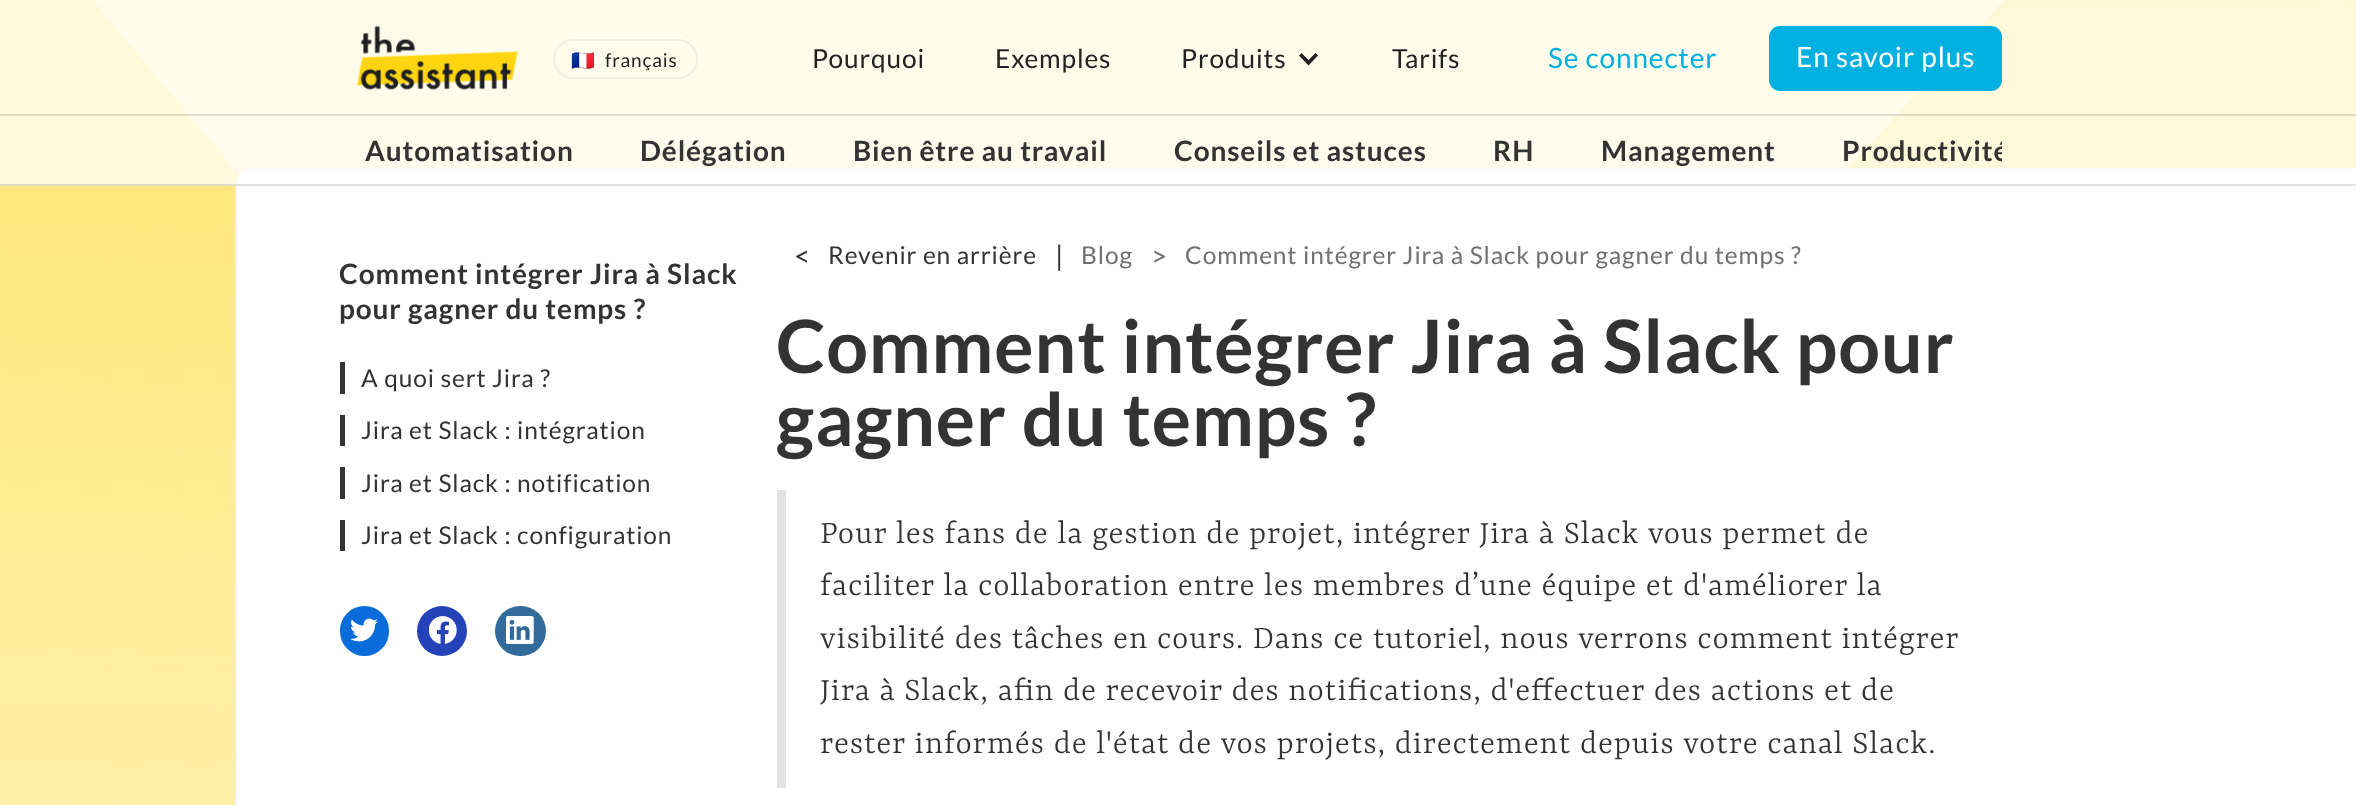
<svg xmlns="http://www.w3.org/2000/svg" width="2356" height="805">
<style>
.a{font:19px Noto Color Emoji;letter-spacing:0.88px;fill:#222}
.b{font:19px Lato;letter-spacing:0.88px;fill:#222}
.c{font:26.25px Lato;letter-spacing:0.88px;fill:#222}
.d{font:28px Lato;letter-spacing:0.88px;fill:#00b0e0}
.e{font:28px Lato;letter-spacing:0.88px;fill:#fff}
.f{font:bold 28px Lato;letter-spacing:0.88px;fill:#333}
.g{font:24.5px Lato;letter-spacing:0.88px;fill:#333}
.h{font:28px Lato;letter-spacing:0.88px;fill:#333}
.i{font:24.5px Lato;letter-spacing:0.88px;fill:#707070}
.j{font:28px Lato;letter-spacing:0.88px;fill:#707070}
.k{font:bold 73.5px Lato;letter-spacing:0.88px;fill:#333}
.l{font:300 35px Yrsa;letter-spacing:0.88px;fill:#333}
</style>
<defs>
<linearGradient id="g1" gradientUnits="userSpaceOnUse" x1="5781" y1="335" x2="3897" y2="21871"><stop offset="0" stop-color="#fed510" stop-opacity="0.4"/><stop offset="0.15" stop-color="#fed510" stop-opacity="0"/></linearGradient>
<linearGradient id="g2" gradientUnits="userSpaceOnUse" x1="-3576" y1="-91" x2="-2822" y2="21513"><stop offset="0" stop-color="#fed510" stop-opacity="0.5"/><stop offset="0.15" stop-color="#fed510" stop-opacity="0"/></linearGradient>
<clipPath id="clip1"><path d="M357 116h1645v70H357z"/></clipPath>
</defs>
<rect width="100%" height="100%" fill="#fff"/>
<image href="2.png" x="0" y="0" width="2356" height="805"/>
<path fill="url(#g1)" d="M-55-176l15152 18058l-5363 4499l-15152-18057z"/>
<path fill="url(#g2)" d="M-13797 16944l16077-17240l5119 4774l-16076 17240z"/>
<path fill="#ffffffbf" d="M0 0h2356v116H0z"/>
<path fill="#33333326" d="M0 114h2356v2H0z"/>
<image href="1.png" x="357" y="25" width="161" height="65"/>
<rect fill="none" stroke="#f2efe0" stroke-width="2" x="554" y="40" width="143" height="38" rx="19"/>
<path fill="#222" d="M1315.5 53l-7 7l-7-7l-2.5 2.5l9.5 10l9.5-10z"/>
<rect fill="#00b0e0" x="1769" y="26" width="233" height="65" rx="11"/>
<path fill="#fff" d="M256 168h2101v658h-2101c-11.5 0-21-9.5-21-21v-616c0-11.5 9.5-21 21-21z"/>
<path fill="none" stroke="#0000000d" stroke-width="2" d="M236 169h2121v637H236z"/>
<path fill="#ffffffbf" d="M0 116h2356v70H0z"/>
<path fill="#33333326" d="M0 184h2356v2H0z"/>
<path fill="#333" d="M340 362h5v32H340z"/>
<path fill="#333" d="M340 415h5v31H340z"/>
<path fill="#333" d="M340 467h5v32H340z"/>
<path fill="#333" d="M340 520h5v31H340z"/>
<rect fill="#0a6cdb" x="340" y="606" width="49" height="50" rx="24.5"/>
<image href="3.png" x="350" y="618" width="28" height="24"/>
<circle fill="#2543b9" cx="442" cy="631" r="25"/>
<image href="4.png" x="429" y="616" width="28" height="28"/>
<rect fill="#326a9b" x="495" y="606" width="51" height="50" rx="25"/>
<image href="5.png" x="506" y="616" width="28" height="28"/>
<path fill="#e2e2e2" d="M777 490h9v298H777z"/>
<text class="a" x="571" y="67">🇫🇷</text>
<text class="b" x="605" y="67">français</text>
<text class="c" x="812" y="68">Pourquoi</text>
<text class="c" x="995" y="68">Exemples</text>
<text class="c" x="1181" y="68">Produits</text>
<text class="c" x="1392" y="68">Tarifs</text>
<text class="d" x="1548" y="68">Se connecter</text>
<text class="e" x="1796" y="67">En savoir plus</text>
<text class="f" x="365" y="161">Automatisation</text>
<text class="f" x="640" y="161">Délégation</text>
<text class="f" x="853" y="161">Bien être au travail</text>
<text class="f" x="1174" y="161">Conseils et astuces</text>
<text class="f" x="1493" y="161">RH</text>
<text class="f" x="1601" y="161">Management</text>
<g clip-path="url(#clip1)">
<text class="f" x="1842" y="161">Productivité</text>
</g>
<text class="f" x="339" y="284">Comment intégrer Jira à Slack</text>
<text class="f" x="339" y="319">pour gagner du temps ?</text>
<text class="g" x="361" y="387">A quoi sert Jira ?</text>
<text class="g" x="361" y="439">Jira et Slack : intégration</text>
<text class="g" x="361" y="492">Jira et Slack : notification</text>
<text class="g" x="361" y="544">Jira et Slack : configuration</text>
<text class="h" x="794" y="266">&lt;</text>
<text class="g" x="828" y="264">Revenir en arrière</text>
<text class="h" x="1055" y="266">|</text>
<text class="i" x="1081" y="264">Blog</text>
<text class="j" x="1151" y="266">&gt;</text>
<text class="i" x="1185" y="264">Comment intégrer Jira à Slack pour gagner du temps ?</text>
<text class="k" x="776" y="373">Comment intégrer Jira à Slack pour</text>
<text class="k" x="776" y="446">gagner du temps ?</text>
<text class="l" x="820" y="543">Pour les fans de la gestion de projet, intégrer Jira à Slack vous permet de</text>
<text class="l" x="820" y="595">faciliter la collaboration entre les membres d’une équipe et d'améliorer la</text>
<text class="l" x="820" y="648">visibilité des tâches en cours. Dans ce tutoriel, nous verrons comment intégrer</text>
<text class="l" x="820" y="700">Jira à Slack, afin de recevoir des notifications, d'effectuer des actions et de</text>
<text class="l" x="820" y="753">rester informés de l'état de vos projets, directement depuis votre canal Slack.</text>
</svg>
